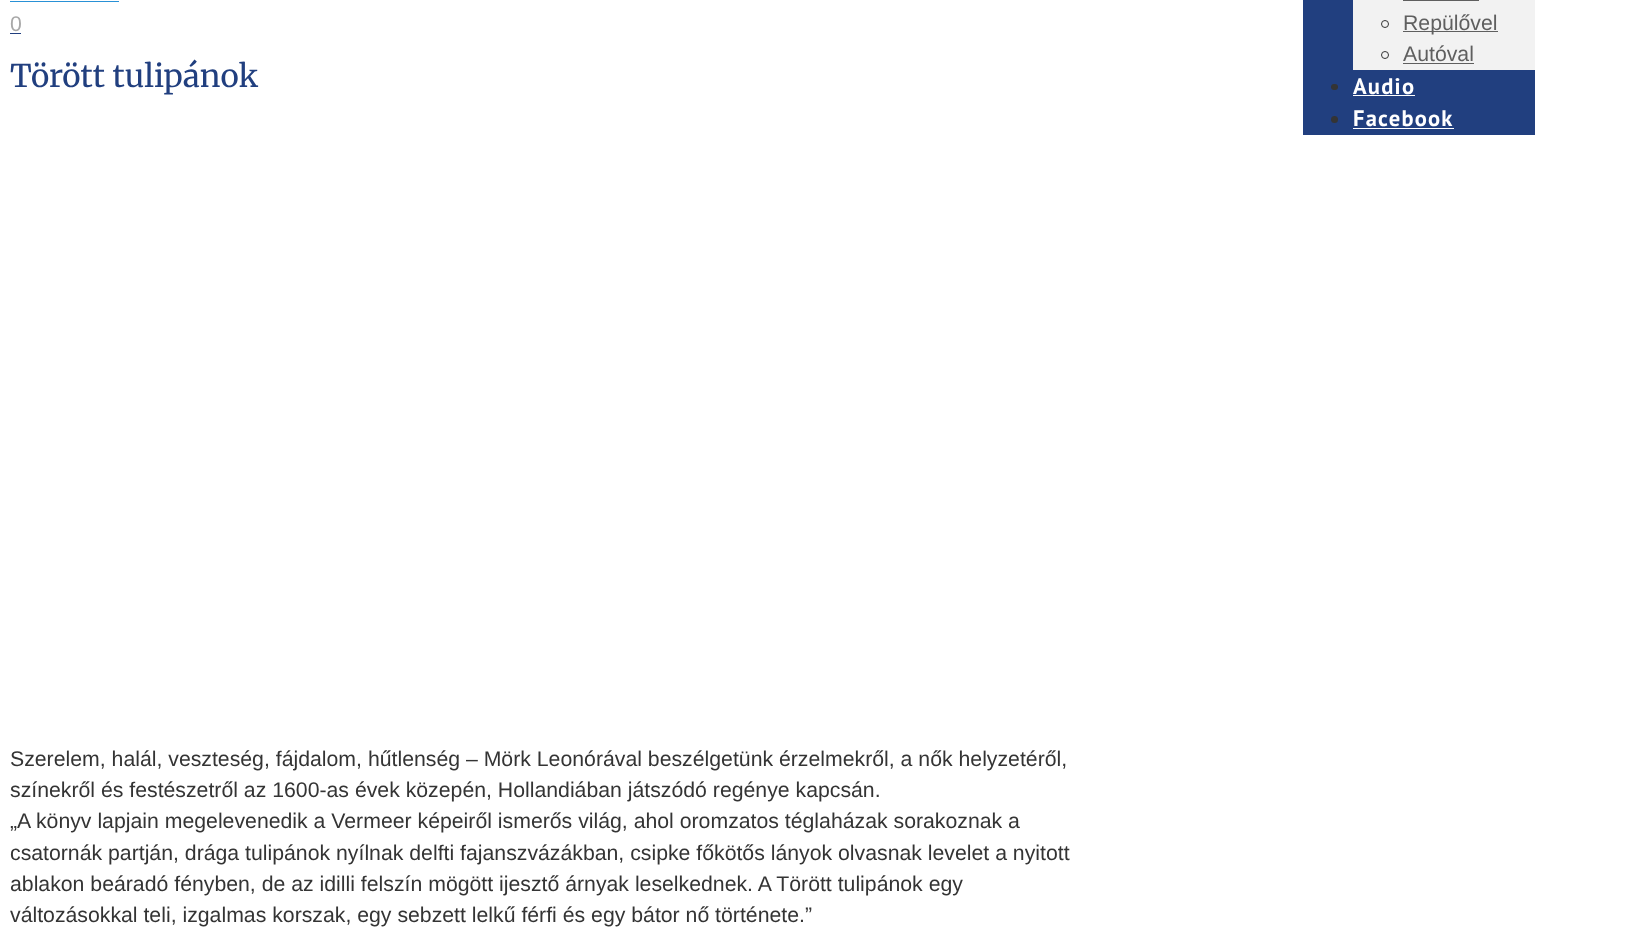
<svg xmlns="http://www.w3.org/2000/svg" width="1651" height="941">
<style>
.a{font:21.25px Liberation Sans;fill:#a8a8a8}
.b{font:31.25px Merriweather;fill:#213f7f}
.c{font:21.25px Liberation Sans;fill:#343434}
.d{font:21.25px Liberation Sans;fill:#5f5f5f}
.e{font:bold 22.5px PT Sans;letter-spacing:1.25px;fill:#fff}
</style>
<rect width="100%" height="100%" fill="#fff"/>
<path fill="#2991d6" d="M10 1h109v1H10z"/>
<path fill="#213f7f" d="M10 33h11v1H10z"/>
<path fill="#213f7f" d="M1303 0h232v135H1303z"/>
<path fill="#f2f2f2" d="M1353 0h182v70H1353z"/>
<path fill="#5f5f5f" d="M1403 0h76v1H1403z"/>
<circle fill="none" stroke="#343434" cx="1385" cy="24" r="3.5"/>
<path fill="#5f5f5f" d="M1403 31h95v1H1403z"/>
<circle fill="none" stroke="#343434" cx="1385" cy="55" r="3.5"/>
<path fill="#5f5f5f" d="M1403 63h71v1H1403z"/>
<rect fill="#343434" x="1331" y="84" width="7" height="6" rx="3"/>
<path fill="#fff" d="M1353 95h62v1H1353z"/>
<circle fill="#343434" cx="1334.5" cy="119.5" r="3.5"/>
<path fill="#fff" d="M1353 128h101v1H1353z"/>
<text class="a" x="10" y="31">0</text>
<text class="b" x="10" y="87">Törött tulipánok</text>
<text class="c" x="10" y="766">Szerelem, halál, veszteség, fájdalom, hűtlenség – Mörk Leonórával beszélgetünk érzelmekről, a nők helyzetéről,</text>
<text class="c" x="10" y="797">színekről és festészetről az 1600-as évek közepén, Hollandiában játszódó regénye kapcsán.</text>
<text class="c" x="10" y="828">„A könyv lapjain megelevenedik a Vermeer képeiről ismerős világ, ahol oromzatos téglaházak sorakoznak a</text>
<text class="c" x="10" y="860">csatornák partján, drága tulipánok nyílnak delfti fajanszvázákban, csipke főkötős lányok olvasnak levelet a nyitott</text>
<text class="c" x="10" y="891">ablakon beáradó fényben, de az idilli felszín mögött ijesztő árnyak leselkednek. A Törött tulipánok egy</text>
<text class="c" x="10" y="922">változásokkal teli, izgalmas korszak, egy sebzett lelkű férfi és egy bátor nő története.”</text>
<text class="d" x="1403" y="30">Repülővel</text>
<text class="d" x="1403" y="61">Autóval</text>
<text class="e" x="1353" y="94">Audio</text>
<text class="e" x="1353" y="126">Facebook</text>
</svg>
